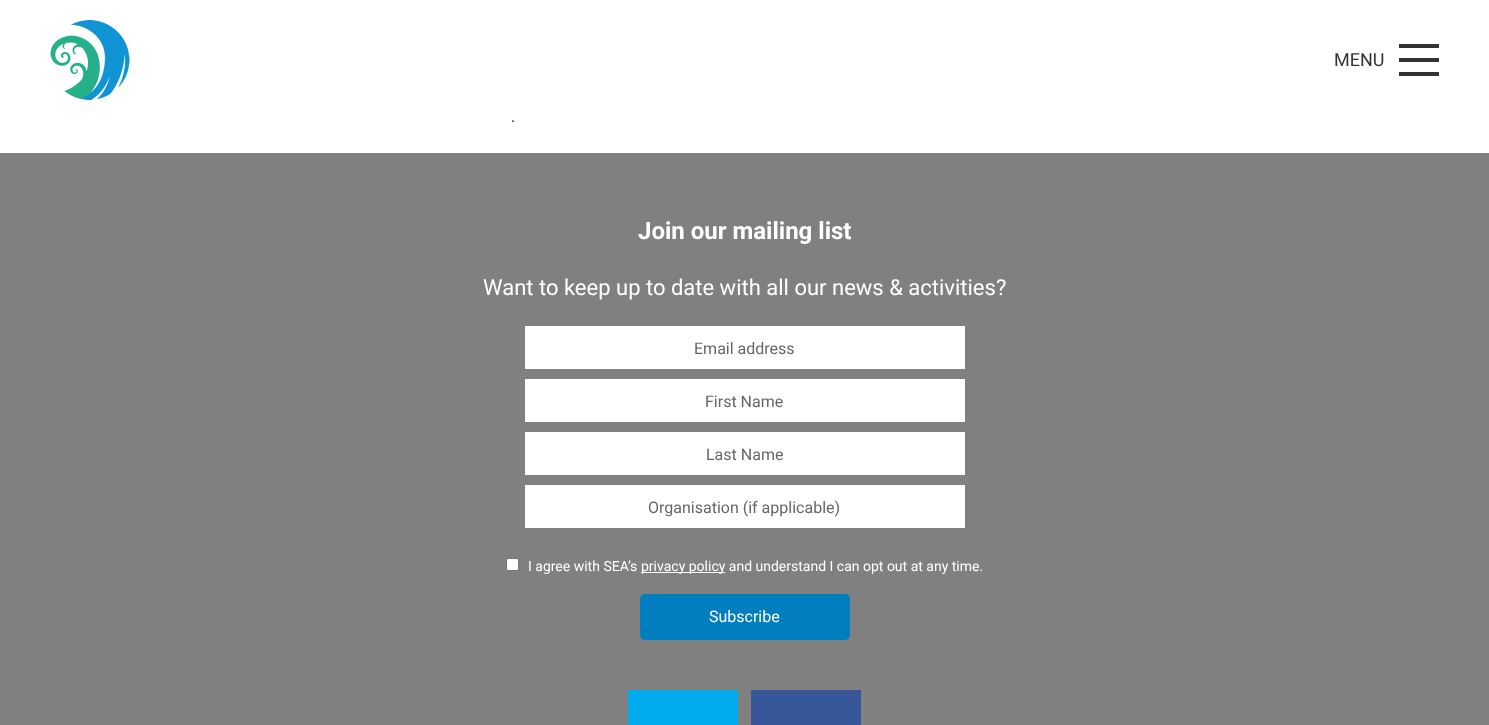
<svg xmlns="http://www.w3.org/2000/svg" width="1489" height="725">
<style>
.a{font:18px Roboto;fill:#333}
.b{font:16px Roboto;fill:#333}
.c{font:bold 24px Roboto;fill:#fff}
.d{font:22px Roboto;fill:#fff}
.e{font:16px Roboto;fill:#666}
.f{font:14px Roboto;fill:#fff}
.g{font:16px Roboto;fill:#fff}
</style>
<rect width="100%" height="100%" fill="#fff"/>
<image href="1.png" x="50" y="20" width="80" height="80"/>
<path fill="#333" d="M1399 44h40v4H1399z"/>
<path fill="#333" d="M1399 72h40v4H1399z"/>
<path fill="#333" d="M1399 58h40v4H1399z"/>
<path fill="#808080" d="M0 153h1489v572H0z"/>
<path fill="#fff" d="M525 326h440v43H525z"/>
<path fill="#fff" d="M525 379h440v43H525z"/>
<path fill="#fff" d="M525 432h440v43H525z"/>
<path fill="#fff" d="M525 485h440v43H525z"/>
<rect fill="#fff" stroke="#767676" x="506.5" y="558.5" width="12" height="12" rx="1.5"/>
<path fill="#fff" d="M641 572h84v1H641z"/>
<rect fill="#007ebf" x="640" y="594" width="210" height="46" rx="5"/>
<path fill="#00acee" d="M628 690h110v35H628z"/>
<path fill="#38579a" d="M751 690h110v35H751z"/>
<text class="a" x="1334" y="66">MENU</text>
<text class="b" x="511" y="122">.</text>
<text class="c" x="638" y="239">Join our mailing list</text>
<text class="d" x="483" y="295">Want to keep up to date with all our news &amp; activities?</text>
<text class="e" x="694" y="354">Email address</text>
<text class="e" x="705" y="407">First Name</text>
<text class="e" x="706" y="460">Last Name</text>
<text class="e" x="648" y="513">Organisation (if applicable)</text>
<text class="f" x="528" y="571">I agree with SEA’s</text>
<text class="f" x="641" y="571">privacy policy and understand I can opt out at any time.</text>
<text class="g" x="709" y="622">Subscribe</text>
</svg>
